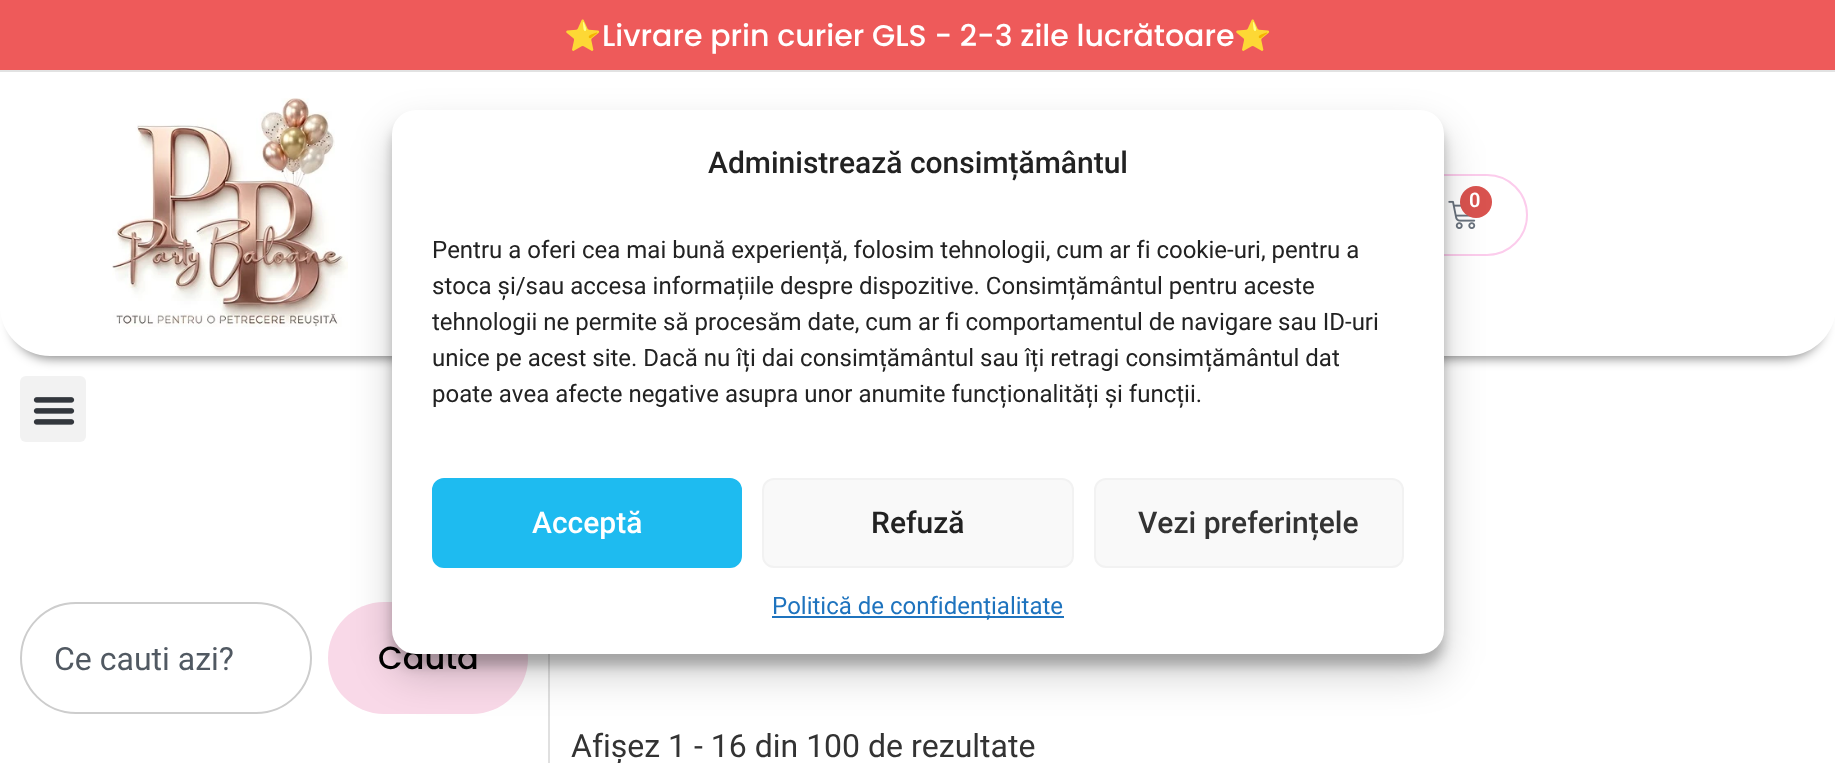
<svg xmlns="http://www.w3.org/2000/svg" width="1835" height="763">
<style>*{font-kerning:none!important;font-variant-ligatures:none!important}</style>
<style>
.a{font:30px Noto Color Emoji;fill:#fff}
.b{font:500 30px Poppins;fill:#fff}
.c{font:600 20px Roboto;fill:#fff}
.d{font:32px Roboto;fill:#515962}
.e{font:500 32px Poppins;fill:#000}
.f{font:24px Roboto;fill:#222}
.g{font:24px Roboto;fill:#1e73be}
.h{font:500 30px Roboto;fill:#333}
.i{font:500 30px Roboto;fill:#222}
.j{font:500 30px Roboto;fill:#fff}
.k{font:32px Roboto;fill:#333}
</style>
<rect width="100%" height="100%" fill="#fff"/>
<path fill="#ee5a5a" d="M0 0h1835v70H0z"/>
<path fill="#e2e2e2" d="M0 70h1835v2H0z"/>
<rect fill="#00000080" filter="blur(6px)" x="12" y="98" width="1812" height="260" rx="38"/>
<path fill="#fff" d="M0 72h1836v234c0 27.5-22.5 50-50 50h-1736c-27.5 0-50-22.5-50-50z"/>
<image href="1.png" x="112" y="98" width="236" height="229"/>
<rect fill="none" stroke="#fcccec" stroke-width="2" x="1399" y="175" width="128" height="80" rx="40"/>
<image href="2.png" x="1448" y="200" width="28" height="29"/>
<circle fill="#d9534f" cx="1476" cy="202" r="16"/>
<rect fill="#f2f2f2" x="20" y="376" width="66" height="66" rx="6"/>
<image href="3.png" x="33" y="397" width="42" height="28"/>
<path fill="#e0e0e0" d="M548 654h2v109H548z"/>
<rect fill="#f9d9e8" x="328" y="602" width="200" height="112" rx="56"/>
<rect fill="#0000003b" filter="blur(6px)" x="392" y="122" width="1052" height="544" rx="24"/>
<rect fill="#00000030" filter="blur(20px)" x="392" y="130" width="1052" height="544" rx="24"/>
<rect fill="none" stroke="#cdcdcd" stroke-width="2" x="21" y="603" width="290" height="110" rx="55"/>
<text class="a" x="564" y="46">⭐</text>
<text class="b" x="602" y="46">Livrare prin curier GLS - 2-3 zile lucrătoare</text>
<text class="a" x="1234" y="46">⭐</text>
<text class="c" x="1469" y="207">0</text>
<text class="d" x="54" y="670">Ce cauti azi?</text>
<text class="e" x="378" y="669">Cauta</text>
<rect fill="#fff" x="392" y="110" width="1052" height="544" rx="24"/>
<text class="f" x="432" y="402">poate avea afecte negative asupra unor anumite funcționalități și funcții.</text>
<text class="f" x="432" y="366">unice pe acest site. Dacă nu îți dai consimțământul sau îți retragi consimțământul dat</text>
<text class="f" x="432" y="330">tehnologii ne permite să procesăm date, cum ar fi comportamentul de navigare sau ID-uri</text>
<text class="f" x="432" y="294">stoca și/sau accesa informațiile despre dispozitive. Consimțământul pentru aceste</text>
<text class="f" x="432" y="258">Pentru a oferi cea mai bună experiență, folosim tehnologii, cum ar fi cookie-uri, pentru a</text>
<path fill="#1e73be" d="M772 616h292v2H772z"/>
<text class="g" x="772" y="614">Politică de confidențialitate</text>
<rect fill="#f9f9f9" stroke="#f2f2f2" stroke-width="2" x="1095" y="479" width="308" height="88" rx="11"/>
<text class="h" x="1138" y="533">Vezi preferințele</text>
<rect fill="#f9f9f9" stroke="#f2f2f2" stroke-width="2" x="763" y="479" width="310" height="88" rx="11"/>
<text class="i" x="871" y="533">Refuză</text>
<rect fill="#1ebbf0" stroke="#1ebbf0" stroke-width="2" x="433" y="479" width="308" height="88" rx="11"/>
<text class="j" x="532" y="533">Acceptă</text>
<text class="i" x="708" y="173">Administrează consimțământul</text>
<text class="k" x="571" y="757">Afișez 1 - 16 din 100 de rezultate</text>
</svg>
